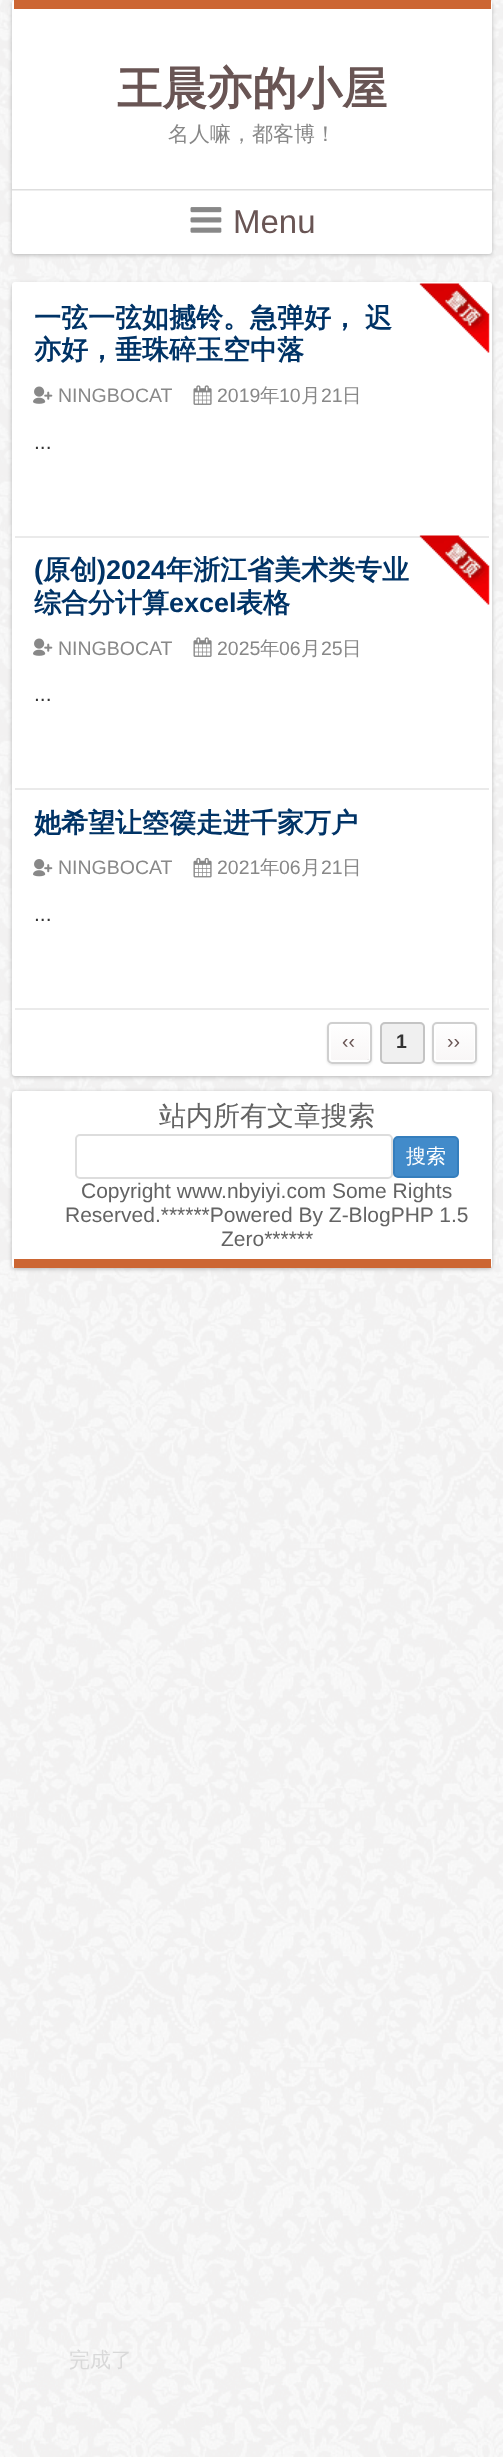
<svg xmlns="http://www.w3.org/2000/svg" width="503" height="2457">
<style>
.a{font:bold 45px WenQuanYi Zen Hei;fill:#695554}
.b{font:500 21px WenQuanYi Zen Hei;fill:#888}
.c{font:33px Liberation Sans;fill:#695554}
.d{font:bold 27px WenQuanYi Zen Hei;fill:#036}
.e{font:19.5px Liberation Sans;fill:#888}
.f{font:500 19.5px WenQuanYi Zen Hei;fill:#888}
.g{font:21px Liberation Sans;fill:#333}
.h{font:bold 27px Liberation Sans;fill:#036}
.i{font:19.5px Liberation Sans;fill:#695554}
.j{font:bold 19.5px Liberation Sans;fill:#333}
.k{font:500 27px WenQuanYi Zen Hei;fill:#636363}
.l{font:500 20px WenQuanYi Zen Hei;fill:#fff}
.m{font:21px Liberation Sans;fill:#636363}
.n{font:500 21px WenQuanYi Zen Hei;fill:#d9d9d9}
</style>
<defs>
<clipPath id="clip1"><path d="M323 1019h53v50h-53zm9 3h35c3 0 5 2 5 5v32c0 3-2 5-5 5h-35c-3 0-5-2-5-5v-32c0-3 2-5 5-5z" clip-rule="evenodd"/></clipPath>
<linearGradient id="g1" gradientUnits="userSpaceOnUse" x1="350" y1="1023" x2="350" y2="1062"><stop offset="0" stop-color="#fff"/><stop offset="1" stop-color="#f8f6f6"/></linearGradient>
<clipPath id="clip2"><path d="M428 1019h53v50h-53zm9 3h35c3 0 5 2 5 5v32c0 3-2 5-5 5h-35c-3 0-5-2-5-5v-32c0-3 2-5 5-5z" clip-rule="evenodd"/></clipPath>
<linearGradient id="g2" gradientUnits="userSpaceOnUse" x1="455" y1="1023" x2="455" y2="1062"><stop offset="0" stop-color="#fff"/><stop offset="1" stop-color="#f8f6f6"/></linearGradient>
</defs>
<rect width="100%" height="100%" fill="#fff"/>
<image href="1.png" x="0" y="0" width="503" height="2457"/>
<rect fill="#b5b5b5" filter="blur(2px)" x="12" y="2" width="480" height="253" rx="3"/>
<rect fill="#fff" x="12" width="480" height="254" rx="3"/>
<path fill="#c63" d="M14 0h477v9H14z"/>
<image href="2.png" x="12" y="189" width="480" height="2"/>
<image href="3.png" x="190" y="207" width="32" height="26"/>
<rect fill="#b5b5b5" filter="blur(2px)" x="12" y="284" width="480" height="793" rx="3"/>
<rect fill="#fff" x="12" y="282" width="480" height="794" rx="3"/>
<path fill="#eaeaea" d="M15 536h474v2H15z"/>
<image href="4.png" x="419" y="283" width="71" height="70"/>
<image href="5.png" x="33" y="386" width="20" height="18"/>
<image href="6.png" x="193" y="385" width="19" height="20"/>
<path fill="#eaeaea" d="M15 788h474v2H15z"/>
<image href="7.png" x="419" y="535" width="71" height="70"/>
<image href="5.png" x="33" y="638" width="20" height="18"/>
<image href="6.png" x="193" y="637" width="19" height="20"/>
<path fill="#eaeaea" d="M15 1008h474v2H15z"/>
<image href="8.png" x="33" y="859" width="20" height="18"/>
<image href="9.png" x="193" y="857" width="19" height="21"/>
<g clip-path="url(#clip1)">
<rect fill="#0000001a" filter="blur(1px)" x="327" y="1023" width="45" height="42" rx="5"/>
</g>
<rect fill="url(#g1)" x="329" y="1023" width="42" height="39" rx="3"/>
<path fill="#02020226" d="M329 1059c2 2 7 1 9 1h24c11 0 8 0 8-13v-23c1 0 1 1 1 2v33c0 2-1 3-3 3h-36c-2 0-3-1-3-3z"/>
<path fill="#f7f7f766" d="M332 1024h36c3 2 2 13 2 15v22c1 0 1-1 1-2v-33c0-2-1-3-3-3h-36c-1 0-3 1-3 2z"/>
<rect fill="none" stroke="#fff" stroke-width="2" x="330" y="1024" width="40" height="37" rx="2"/>
<rect fill="none" stroke="#41414140" stroke-width="2" x="328" y="1023" width="43" height="40" rx="4"/>
<rect fill="#f0f0f0" x="380" y="1022" width="45" height="42" rx="5"/>
<rect fill="none" stroke="#41414140" stroke-width="2" x="381" y="1023" width="43" height="40" rx="4"/>
<g clip-path="url(#clip2)">
<rect fill="#0000001a" filter="blur(1px)" x="432" y="1023" width="45" height="42" rx="5"/>
</g>
<rect fill="url(#g2)" stroke="#fff" stroke-width="2" x="435" y="1024" width="40" height="37" rx="2"/>
<rect fill="none" stroke="#41414140" stroke-width="2" x="433" y="1023" width="43" height="40" rx="4"/>
<rect fill="#b5b5b5" filter="blur(2px)" x="12" y="1092" width="480" height="177" rx="3"/>
<rect fill="#fff" x="12" y="1091" width="480" height="177" rx="3"/>
<path fill="#c63" d="M14 1259h477v9H14z"/>
<rect fill="none" stroke="#ddd" stroke-width="2" x="76" y="1135" width="316" height="43" rx="4"/>
<rect fill="#428bca" stroke="#357ebd" stroke-width="2" x="394" y="1137" width="64" height="40" rx="4"/>
<text class="a" x="117" y="104">王晨亦的小屋</text>
<text class="b" x="168" y="141">名人嘛，都客博！</text>
<text class="c" x="233" y="233">Menu</text>
<text class="d" x="34" y="327" word-spacing="-1">一弦一弦如撼铃。急弹好， 迟</text>
<text class="d" x="34" y="359">亦好，垂珠碎玉空中落</text>
<text class="e" x="58" y="402">NINGBOCAT</text>
<text class="e" x="217" y="402">2019</text>
<text class="f" x="260" y="402">年</text>
<text class="e" x="279" y="402">10</text>
<text class="f" x="301" y="402">月</text>
<text class="e" x="321" y="402">21</text>
<text class="f" x="342" y="402">日</text>
<text class="g" x="34" y="449">...</text>
<text class="h" x="34" y="579">(</text>
<text class="d" x="43" y="579">原创</text>
<text class="h" x="97" y="579">)2024</text>
<text class="d" x="166" y="579">年浙江省美术类专业</text>
<text class="d" x="34" y="612">综合分计算</text>
<text class="h" x="169" y="612">excel</text>
<text class="d" x="236" y="612">表格</text>
<text class="e" x="58" y="655">NINGBOCAT</text>
<text class="e" x="217" y="655">2025</text>
<text class="f" x="260" y="655">年</text>
<text class="e" x="279" y="655">06</text>
<text class="f" x="301" y="655">月</text>
<text class="e" x="321" y="655">25</text>
<text class="f" x="342" y="655">日</text>
<text class="g" x="34" y="701">...</text>
<text class="d" x="34" y="832">她希望让箜篌走进千家万户</text>
<text class="e" x="58" y="874">NINGBOCAT</text>
<text class="e" x="217" y="874">2021</text>
<text class="f" x="260" y="874">年</text>
<text class="e" x="279" y="874">06</text>
<text class="f" x="301" y="874">月</text>
<text class="e" x="321" y="874">21</text>
<text class="f" x="342" y="874">日</text>
<text class="g" x="34" y="921">...</text>
<text class="i" x="342" y="1048">‹‹</text>
<text class="j" x="396" y="1048">1</text>
<text class="i" x="447" y="1048">››</text>
<text class="k" x="159" y="1125">站内所有文章搜索</text>
<text class="l" x="406" y="1163">搜索</text>
<text class="m" x="81" y="1198">Copyright www.nbyiyi.com Some Rights</text>
<text class="m" x="65" y="1222">Reserved.******Powered By Z-BlogPHP 1.5</text>
<text class="m" x="221" y="1246">Zero******</text>
<text class="n" x="69" y="2367">完成了</text>
</svg>
